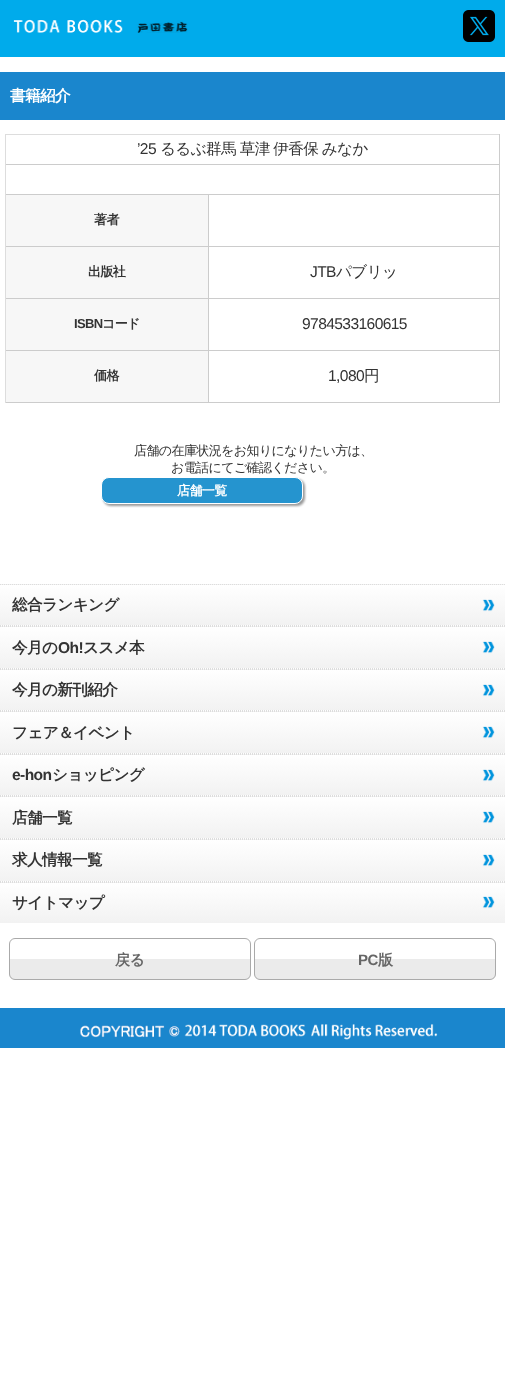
<svg xmlns="http://www.w3.org/2000/svg" width="505" height="1384">
<style>
.a{font:bold 15.6px WenQuanYi Zen Hei;letter-spacing:-0.6px;fill:#fff}
.b{font:15.6px Liberation Sans;letter-spacing:-0.6px;fill:#333}
.c{font:500 15.6px WenQuanYi Zen Hei;letter-spacing:-0.6px;fill:#333}
.d{font:bold 13px WenQuanYi Zen Hei;letter-spacing:-0.6px;fill:#333}
.e{font:bold 13px Liberation Sans;letter-spacing:-0.6px;fill:#333}
.f{font:500 13px WenQuanYi Zen Hei;letter-spacing:-0.6px;fill:#333}
.g{font:bold 13px WenQuanYi Zen Hei;letter-spacing:-0.6px;fill:#fff}
.h{font:bold 15.6px WenQuanYi Zen Hei;letter-spacing:-0.6px;fill:#333}
.i{font:bold 15.6px Liberation Sans;letter-spacing:-0.6px;fill:#333}
.j{font:bold 15px WenQuanYi Zen Hei;letter-spacing:-0.6px;fill:#666}
.k{font:bold 15px Liberation Sans;letter-spacing:-0.6px;fill:#666}
</style>
<defs>
<clipPath id="clip1"><rect x="9" y="938" width="242" height="42" rx="6"/></clipPath>
<clipPath id="clip2"><rect x="254" y="938" width="242" height="42" rx="6"/></clipPath>
</defs>
<rect width="100%" height="100%" fill="#fff"/>
<path fill="#00abeb" d="M0 0h505v57H0z"/>
<image href="1.png" x="13" y="19" width="175" height="14"/>
<image href="2.png" x="463" y="10" width="32" height="32"/>
<path fill="#1a86cd" d="M0 72h505v48H0z"/>
<path fill="#ddd" d="M5 134h495v1H5z"/>
<path fill="#ccc" d="M499 134h1v269H499z"/>
<path fill="#ccc" d="M208 402h292v1H208z"/>
<path fill="#ccc" d="M208 350h1v53H208z"/>
<path fill="#ccc" d="M208 350h292v1H208z"/>
<path fill="#ccc" d="M208 298h1v53H208z"/>
<path fill="#ccc" d="M208 298h292v1H208z"/>
<path fill="#ccc" d="M208 246h1v53H208z"/>
<path fill="#ccc" d="M208 246h292v1H208z"/>
<path fill="#ccc" d="M208 194h1v53H208z"/>
<path fill="#ccc" d="M5 402h204v1H5z"/>
<path fill="#ddd" d="M5 350h1v53H5z"/>
<path fill="#ccc" d="M5 350h204v1H5z"/>
<path fill="#ddd" d="M5 298h1v53H5z"/>
<path fill="#ccc" d="M5 298h204v1H5z"/>
<path fill="#ddd" d="M5 246h1v53H5z"/>
<path fill="#ccc" d="M5 246h204v1H5z"/>
<path fill="#ddd" d="M5 194h1v53H5z"/>
<path fill="#ccc" d="M5 194h495v1H5z"/>
<path fill="#ddd" d="M5 164h1v31H5z"/>
<path fill="#ccc" d="M5 164h495v1H5z"/>
<path fill="#ddd" d="M5 134h1v31H5z"/>
<path fill="#f7f7f7" d="M6 195h202v51H6z"/>
<path fill="#f7f7f7" d="M6 247h202v51H6z"/>
<path fill="#f7f7f7" d="M6 299h202v51H6z"/>
<path fill="#f7f7f7" d="M6 351h202v51H6z"/>
<rect fill="#00000066" filter="blur(1px)" x="103" y="479" width="202" height="27" rx="8"/>
<rect fill="#2594cf" stroke="#fff" x="101.5" y="477.5" width="201" height="26" rx="7.5"/>
<image href="3.png" x="0" y="584" width="505" height="41"/>
<path fill="none" stroke="#ddd" stroke-dasharray="1 1" d="M0 584.5h505"/>
<path fill="none" stroke="#ddd" stroke-dasharray="1 1" d="M0 625.5h505"/>
<image href="4.png" x="0" y="626" width="505" height="42"/>
<path fill="none" stroke="#ddd" stroke-dasharray="1 1" d="M0 626.5h505"/>
<path fill="none" stroke="#ddd" stroke-dasharray="1 1" d="M0 668.5h505"/>
<image href="3.png" x="0" y="669" width="505" height="41"/>
<path fill="none" stroke="#ddd" stroke-dasharray="1 1" d="M0 669.5h505"/>
<path fill="none" stroke="#ddd" stroke-dasharray="1 1" d="M0 710.5h505"/>
<image href="4.png" x="0" y="711" width="505" height="42"/>
<path fill="none" stroke="#ddd" stroke-dasharray="1 1" d="M0 711.5h505"/>
<path fill="none" stroke="#ddd" stroke-dasharray="1 1" d="M0 753.5h505"/>
<image href="3.png" x="0" y="754" width="505" height="41"/>
<path fill="none" stroke="#ddd" stroke-dasharray="1 1" d="M0 754.5h505"/>
<path fill="none" stroke="#ddd" stroke-dasharray="1 1" d="M0 795.5h505"/>
<image href="4.png" x="0" y="796" width="505" height="42"/>
<path fill="none" stroke="#ddd" stroke-dasharray="1 1" d="M0 796.5h505"/>
<path fill="none" stroke="#ddd" stroke-dasharray="1 1" d="M0 838.5h505"/>
<image href="4.png" x="0" y="839" width="505" height="42"/>
<path fill="none" stroke="#ddd" stroke-dasharray="1 1" d="M0 839.5h505"/>
<path fill="none" stroke="#ddd" stroke-dasharray="1 1" d="M0 881.5h505"/>
<image href="5.png" x="0" y="882" width="505" height="41"/>
<path fill="none" stroke="#ddd" stroke-dasharray="1 1" d="M0 882.5h505"/>
<g clip-path="url(#clip1)">
<path fill="#ebebeb" d="M9 959h242v20H9z"/>
</g>
<rect fill="none" stroke="#aaa" x="9.5" y="938.5" width="241" height="41" rx="5.5"/>
<g clip-path="url(#clip2)">
<path fill="#ebebeb" d="M254 959h242v20H254z"/>
</g>
<rect fill="none" stroke="#aaa" x="254.5" y="938.5" width="241" height="41" rx="5.5"/>
<path fill="#1a86cd" d="M0 1008h505v2H0z"/>
<image href="6.png" x="0" y="1010" width="505" height="38"/>
<text class="a" x="10" y="101">書籍紹介</text>
<text class="b" x="137" y="154">’25</text>
<text class="c" x="160" y="154" word-spacing="-0.5">るるぶ群馬 草津 伊香保 みなか</text>
<text class="d" x="94" y="224">著者</text>
<text class="d" x="88" y="276">出版社</text>
<text class="b" x="310" y="277">JTB</text>
<text class="c" x="336" y="277">パブリッ</text>
<text class="e" x="74" y="328">ISBN</text>
<text class="d" x="102" y="328">コード</text>
<text class="b" x="302" y="329">9784533160615</text>
<text class="d" x="94" y="380">価格</text>
<text class="b" x="328" y="381">1,080</text>
<text class="c" x="364" y="381">円</text>
<text class="f" x="134" y="455">店舗の在庫状況をお知りになりたい方は、</text>
<text class="f" x="171" y="472">お電話にてご確認ください。</text>
<text class="g" x="177" y="495">店舗一覧</text>
<text class="h" x="12" y="610">総合ランキング</text>
<text class="h" x="12" y="653">今月の</text>
<text class="i" x="58" y="653">Oh!</text>
<text class="h" x="83" y="653">ススメ本</text>
<text class="h" x="12" y="695">今月の新刊紹介</text>
<text class="h" x="12" y="738">フェア＆イベント</text>
<text class="i" x="12" y="780">e-hon</text>
<text class="h" x="52" y="780">ショッピング</text>
<text class="h" x="12" y="823">店舗一覧</text>
<text class="h" x="12" y="865">求人情報一覧</text>
<text class="h" x="12" y="908">サイトマップ</text>
<text class="j" x="115" y="965">戻る</text>
<text class="k" x="358" y="965">PC</text>
<text class="j" x="378" y="965">版</text>
</svg>
